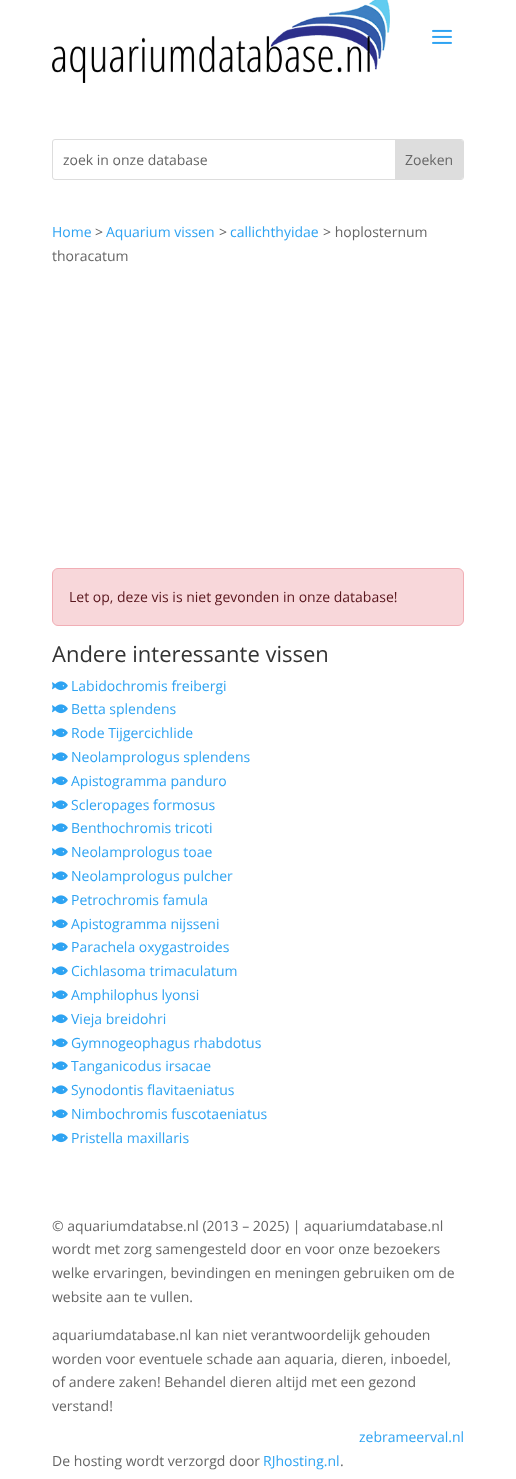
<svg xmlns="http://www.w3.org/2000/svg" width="516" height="1479">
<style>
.a{font:14px Open Sans;fill:#666}
.b{font:14px Open Sans;fill:#2ea3f2}
.c{font:14px Open Sans;fill:#58151c}
.d{font:22px Open Sans;fill:#333}
</style>
<rect width="100%" height="100%" fill="#fff"/>
<image href="1.png" x="52" y="0" width="338" height="83"/>
<image href="2.png" x="432" y="29" width="20" height="15"/>
<rect fill="none" stroke="#ddd" x="52.5" y="139.5" width="411" height="40" rx="2.5"/>
<path fill="#ddd" d="M395 140h66c1 0 2 1 2 2v35c0 1-1 2-2 2h-66z"/>
<rect fill="#f8d7da" stroke="#f1aeb5" x="52.5" y="568.5" width="411" height="57" rx="5.5"/>
<image href="3.png" x="52" y="681" width="16" height="10"/>
<image href="3.png" x="52" y="704" width="16" height="10"/>
<image href="3.png" x="52" y="728" width="16" height="10"/>
<image href="3.png" x="52" y="752" width="16" height="10"/>
<image href="3.png" x="52" y="776" width="16" height="10"/>
<image href="3.png" x="52" y="800" width="16" height="10"/>
<image href="3.png" x="52" y="823" width="16" height="10"/>
<image href="3.png" x="52" y="847" width="16" height="10"/>
<image href="3.png" x="52" y="871" width="16" height="10"/>
<image href="3.png" x="52" y="895" width="16" height="10"/>
<image href="3.png" x="52" y="919" width="16" height="10"/>
<image href="3.png" x="52" y="942" width="16" height="10"/>
<image href="3.png" x="52" y="966" width="16" height="10"/>
<image href="3.png" x="52" y="990" width="16" height="10"/>
<image href="3.png" x="52" y="1014" width="16" height="10"/>
<image href="3.png" x="52" y="1038" width="16" height="10"/>
<image href="3.png" x="52" y="1061" width="16" height="10"/>
<image href="3.png" x="52" y="1085" width="16" height="10"/>
<image href="3.png" x="52" y="1109" width="16" height="10"/>
<image href="3.png" x="52" y="1133" width="16" height="10"/>
<text class="a" x="63" y="165">zoek in onze database</text>
<text class="a" x="405" y="165">Zoeken</text>
<text class="b" x="52" y="237">Home</text>
<text class="a" x="95" y="237">&gt;</text>
<text class="b" x="106" y="237">Aquarium vissen</text>
<text class="a" x="219" y="237">&gt;</text>
<text class="b" x="230" y="237">callichthyidae</text>
<text class="a" x="323" y="237">&gt; hoplosternum</text>
<text class="a" x="52" y="261">thoracatum</text>
<text class="c" x="69" y="602">Let op, deze vis is niet gevonden in onze database!</text>
<text class="d" x="52" y="662">Andere interessante vissen</text>
<text class="b" x="71" y="691">Labidochromis freibergi</text>
<text class="b" x="71" y="714">Betta splendens</text>
<text class="b" x="71" y="738">Rode Tijgercichlide</text>
<text class="b" x="71" y="762">Neolamprologus splendens</text>
<text class="b" x="71" y="786">Apistogramma panduro</text>
<text class="b" x="71" y="810">Scleropages formosus</text>
<text class="b" x="71" y="833">Benthochromis tricoti</text>
<text class="b" x="71" y="857">Neolamprologus toae</text>
<text class="b" x="71" y="881">Neolamprologus pulcher</text>
<text class="b" x="71" y="905">Petrochromis famula</text>
<text class="b" x="71" y="929">Apistogramma nijsseni</text>
<text class="b" x="71" y="952">Parachela oxygastroides</text>
<text class="b" x="71" y="976">Cichlasoma trimaculatum</text>
<text class="b" x="71" y="1000">Amphilophus lyonsi</text>
<text class="b" x="71" y="1024">Vieja breidohri</text>
<text class="b" x="71" y="1048">Gymnogeophagus rhabdotus</text>
<text class="b" x="71" y="1071">Tanganicodus irsacae</text>
<text class="b" x="71" y="1095">Synodontis flavitaeniatus</text>
<text class="b" x="71" y="1119">Nimbochromis fuscotaeniatus</text>
<text class="b" x="71" y="1143">Pristella maxillaris</text>
<text class="a" x="52" y="1231">© aquariumdatabse.nl (2013 – 2025) | aquariumdatabase.nl</text>
<text class="a" x="52" y="1254">wordt met zorg samengesteld door en voor onze bezoekers</text>
<text class="a" x="52" y="1278">welke ervaringen, bevindingen en meningen gebruiken om de</text>
<text class="a" x="52" y="1302">website aan te vullen.</text>
<text class="a" x="52" y="1340">aquariumdatabase.nl kan niet verantwoordelijk gehouden</text>
<text class="a" x="52" y="1364">worden voor eventuele schade aan aquaria, dieren, inboedel,</text>
<text class="a" x="52" y="1387">of andere zaken! Behandel dieren altijd met een gezond</text>
<text class="a" x="52" y="1411">verstand!</text>
<text class="b" x="359" y="1442">zebrameerval.nl</text>
<text class="a" x="52" y="1466">De hosting wordt verzorgd door</text>
<text class="b" x="263" y="1466">RJhosting.nl</text>
<text class="a" x="340" y="1466">.</text>
</svg>
